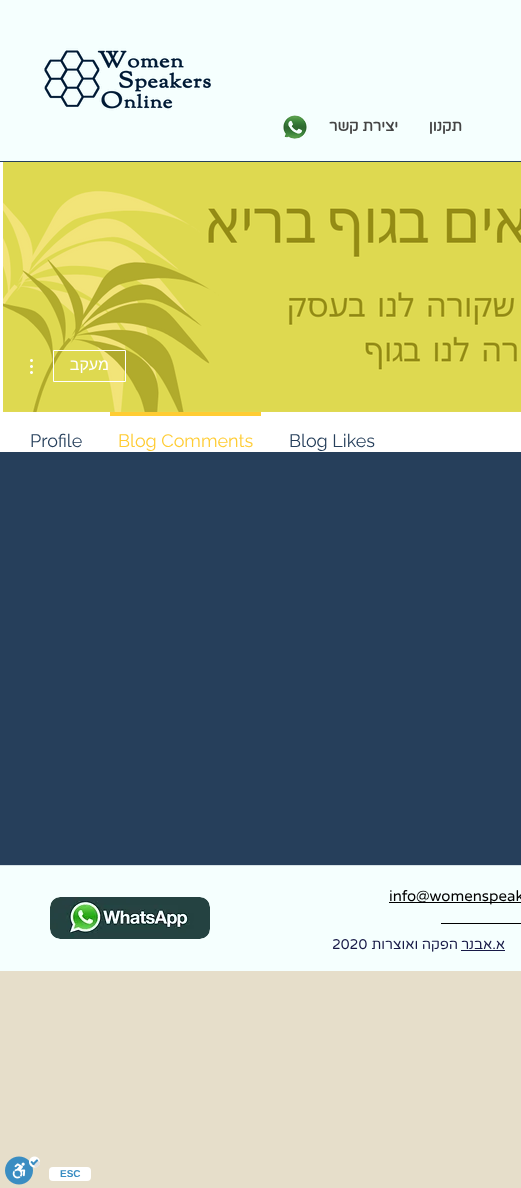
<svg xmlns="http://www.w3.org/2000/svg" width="521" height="1188">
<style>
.a{font:bold 15px Varela Round;direction:rtl;fill:#444}
.b{font:16px Liberation Sans;direction:rtl;fill:#fff}
.c{font:18px Raleway;fill:#263f5b}
.d{font:18px Raleway;fill:#fc3}
.e{font:15px Varela Round;fill:#000}
.f{font:14px Varela Round;fill:#171946}
.g{font:14px Varela Round;direction:rtl;fill:#171946}
.h{font:bold 10px Liberation Sans;fill:#3a8dc2}
</style>
<rect width="100%" height="100%" fill="#e6deca"/>
<path fill="#f5fffe" d="M0 0h521v161H0z"/>
<image href="1.png" x="42" y="48" width="169" height="63"/>
<image href="2.png" x="283" y="115" width="26" height="24"/>
<path fill="#263f5b" d="M0 161h521v704H0z"/>
<path fill="#fff" d="M0 162h521v290H0z"/>
<path fill="#fc3" d="M3 162h518v250H3z"/>
<image href="3.png" x="3" y="162" width="518" height="250"/>
<image href="4.png" x="30" y="359" width="3" height="15"/>
<path fill="none" stroke="#fff" d="M53.5 350.5h72v31H53.5z"/>
<path fill="#fc3" d="M110 412h151v4H110z"/>
<path fill="#f5fffe" d="M0 866h521v105H0z"/>
<path fill="#d6e2e6" d="M0 865h521v1H0z"/>
<image href="5.png" x="50" y="897" width="160" height="42"/>
<path fill="#000" d="M389 902h132v1H389z"/>
<path fill="#000" d="M441 923h80v1H441z"/>
<path fill="#171946" d="M461 950h44v1H461z"/>
<image href="6.png" x="5" y="1156" width="35" height="29"/>
<rect fill="#fff" x="49" y="1167" width="42" height="14" rx="4"/>
<text class="a" x="398" y="131">יצירת קשר</text>
<text class="a" x="462" y="131">תקנון</text>
<text class="b" x="109" y="370">מעקב</text>
<text class="c" x="30" y="447">Profile</text>
<text class="d" x="118" y="447">Blog Comments</text>
<text class="c" x="289" y="447">Blog Likes</text>
<text class="e" x="389" y="901">info@womenspeak</text>
<text class="f" x="332" y="949">2020</text>
<text class="g" x="458" y="949">הפקה ואוצרות</text>
<text class="g" x="505" y="949">א.אבנר</text>
<text class="h" x="60" y="1177">ESC</text>
</svg>
